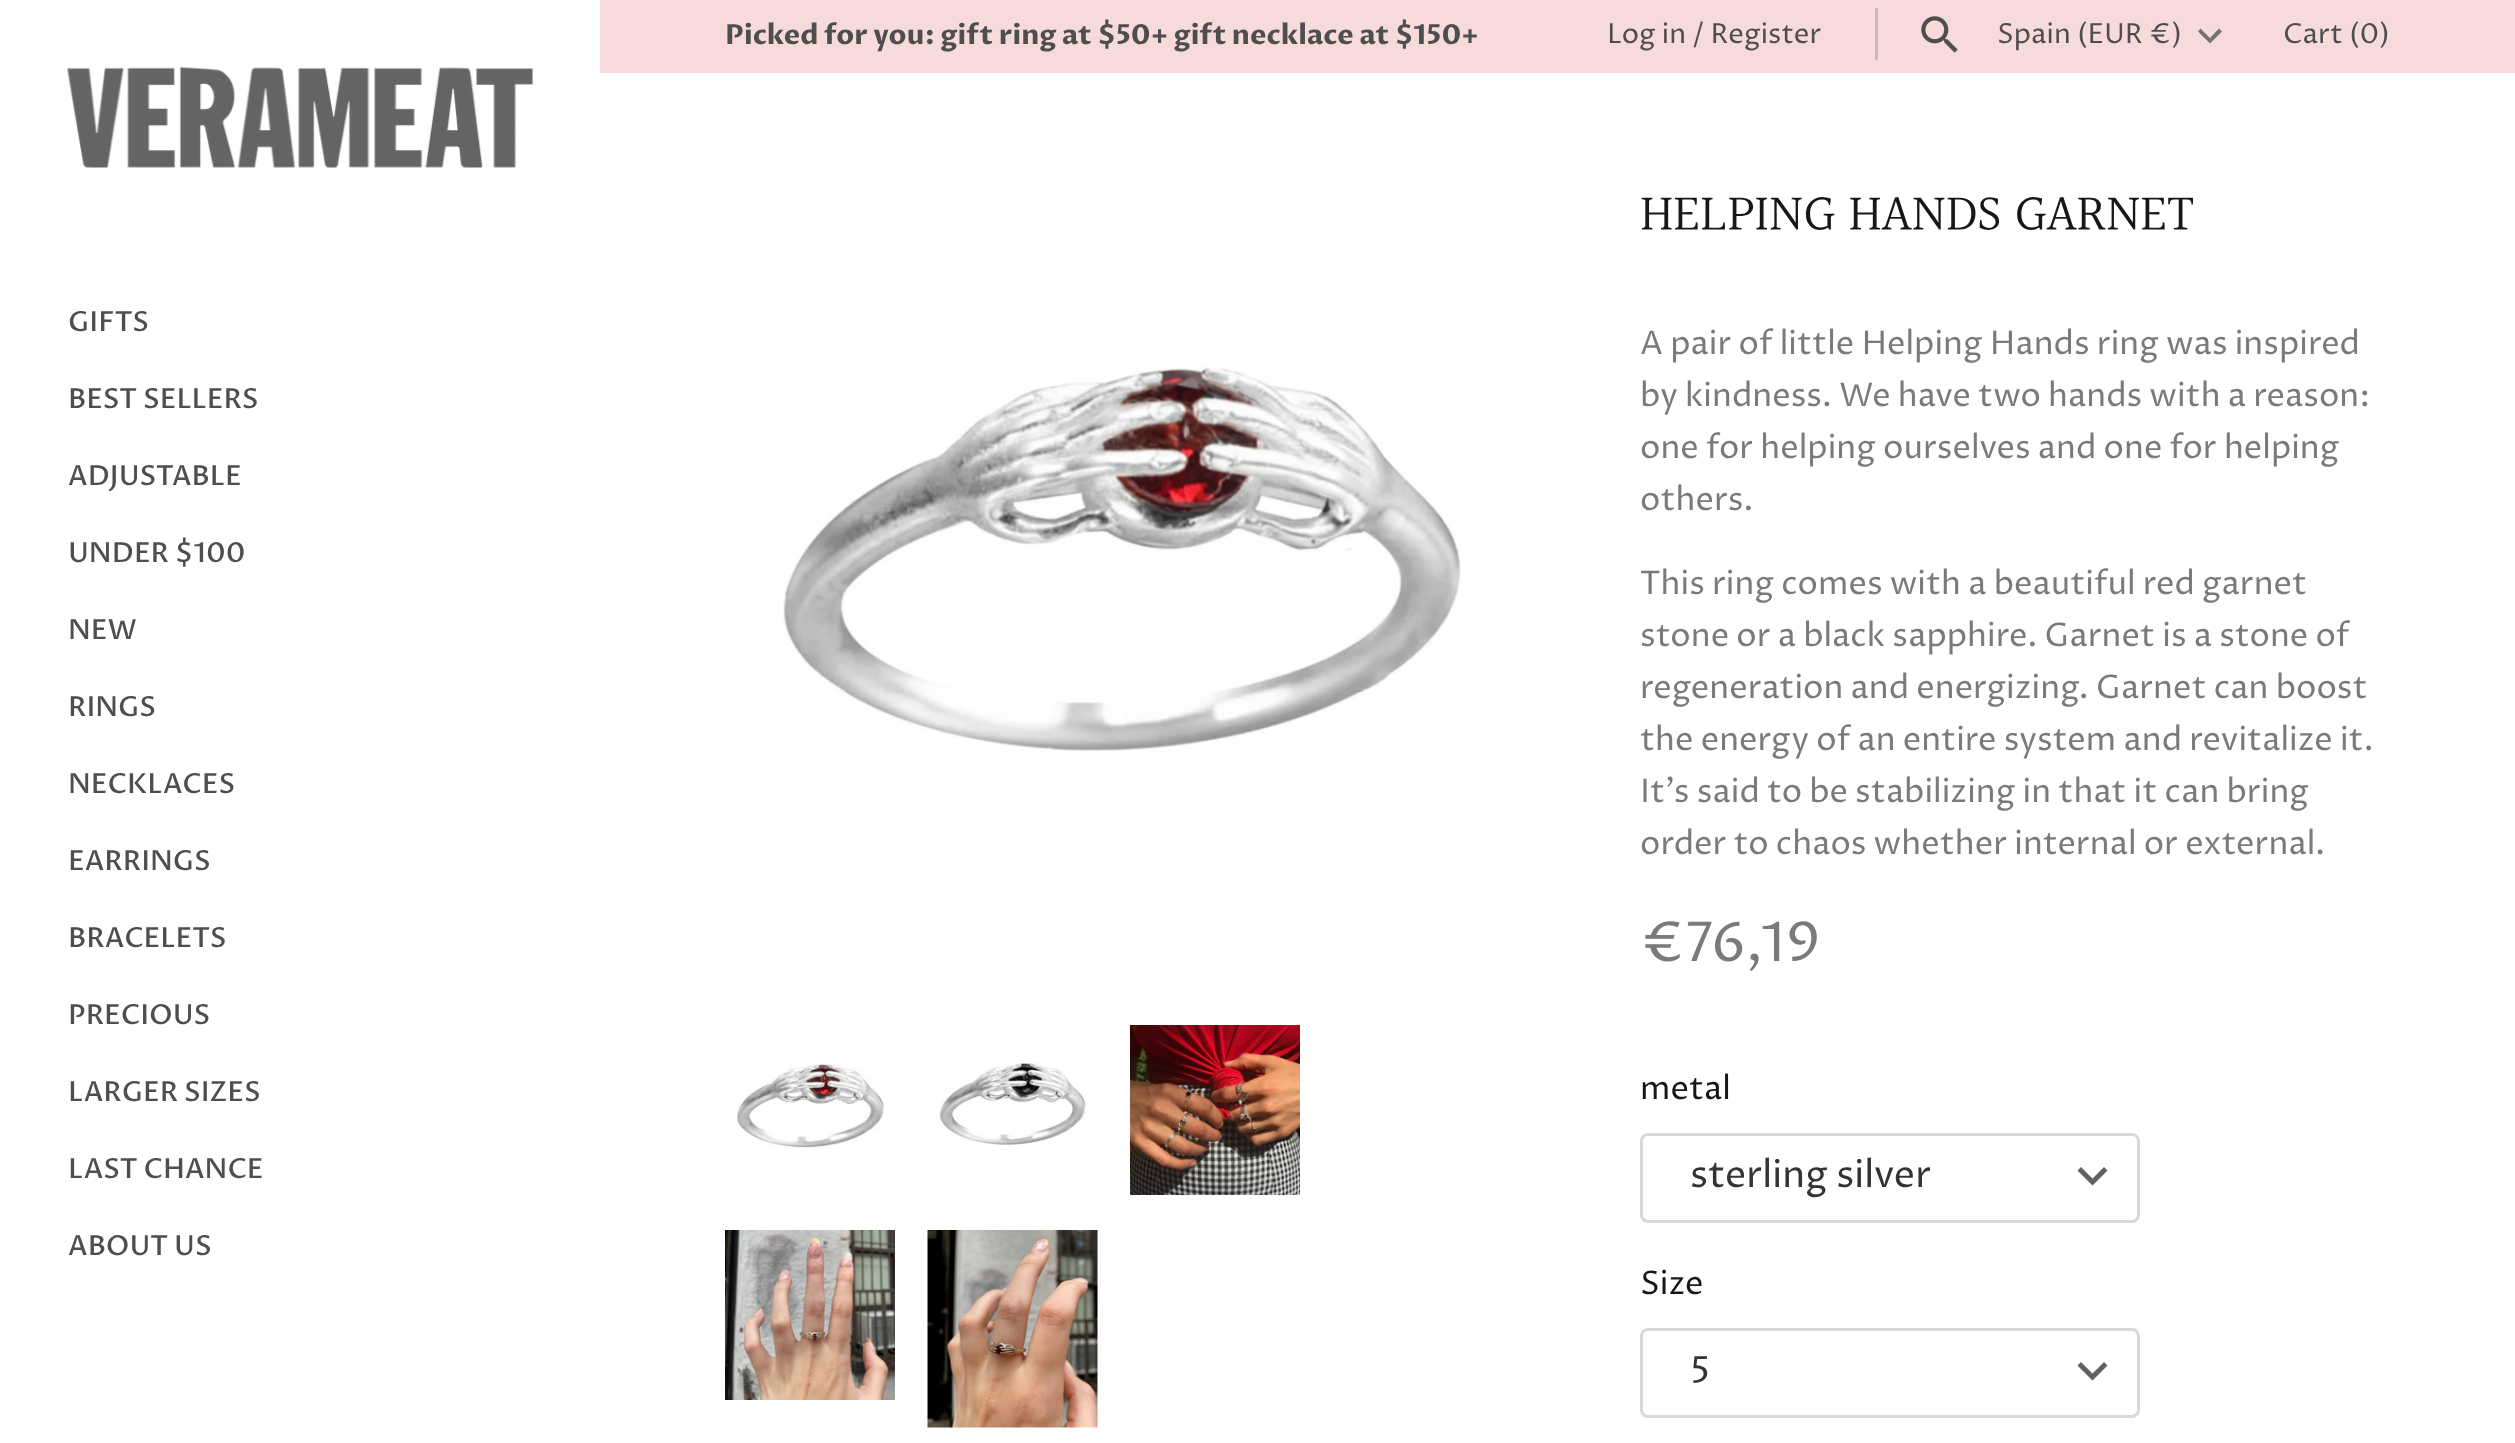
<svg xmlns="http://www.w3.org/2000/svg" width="2515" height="1443">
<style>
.a{font:bold 27.6px Proza Libre;fill:#4e4e4e}
.b{font:27.6px Proza Libre;fill:#4e4e4e}
.c{font:500 27.6px Proza Libre;fill:#4e4e4e}
.d{font:52px Halant;fill:#171717}
.e{font:32.5px Proza Libre;fill:#787a7c}
.f{font:55px Proza Libre;fill:#787a7c}
.g{font:32.5px Proza Libre;fill:#171717}
.h{font:37.5px Proza Libre;fill:#333}
</style>
<rect width="100%" height="100%" fill="#fff"/>
<path fill="#f7dbda" d="M600 0h1915v73H600z"/>
<path fill="#cdb8b7" d="M1875 8h3v52H1875z"/>
<image href="1.png" x="1921" y="16" width="37" height="37"/>
<path fill="#787171" d="M2200.5 28.5l9.5 9.5l9-9.5l3 3l-12 12l-12-12z"/>
<image href="2.png" x="67" y="67" width="466" height="101"/>
<image href="3.png" x="783" y="367" width="678" height="384"/>
<image href="4.png" x="737" y="1063" width="147" height="86"/>
<image href="5.png" x="939" y="1063" width="147" height="82"/>
<image href="6.png" x="1130" y="1025" width="170" height="170"/>
<image href="7.png" x="725" y="1230" width="170" height="170"/>
<image href="8.png" x="927" y="1230" width="171" height="198"/>
<path fill="#616161" d="M2081 1167l11.5 11.5l11.5-11.5l3.5 3.5l-15 15l-15-15z"/>
<rect fill="none" stroke="#d9d9d9" stroke-width="3" x="1641.5" y="1134.5" width="497" height="87" rx="6.5"/>
<path fill="#616161" d="M2081 1362l11.5 11.5l11.5-11.5l3.5 3.5l-15 15l-15-15z"/>
<rect fill="none" stroke="#d9d9d9" stroke-width="3" x="1641.5" y="1329.5" width="497" height="87" rx="6.5"/>
<text class="a" x="725" y="44">Picked for you: gift ring at $50+ gift necklace at $150+</text>
<text class="b" x="1607" y="43">Log in / Register</text>
<text class="b" x="1997" y="43">Spain (EUR €)</text>
<text class="b" x="2283" y="43">Cart (0)</text>
<text class="c" x="68" y="331">GIFTS</text>
<text class="c" x="68" y="408">BEST SELLERS</text>
<text class="c" x="68" y="485">ADJUSTABLE</text>
<text class="c" x="68" y="562">UNDER $100</text>
<text class="c" x="68" y="639">NEW</text>
<text class="c" x="68" y="716">RINGS</text>
<text class="c" x="68" y="793">NECKLACES</text>
<text class="c" x="68" y="870">EARRINGS</text>
<text class="c" x="68" y="947">BRACELETS</text>
<text class="c" x="68" y="1024">PRECIOUS</text>
<text class="c" x="68" y="1101">LARGER SIZES</text>
<text class="c" x="68" y="1178">LAST CHANCE</text>
<text class="c" x="68" y="1255">ABOUT US</text>
<text class="d" x="1640" y="232">HELPING HANDS GARNET</text>
<text class="e" x="1640" y="354">A pair of little Helping Hands ring was inspired</text>
<text class="e" x="1640" y="406">by kindness. We have two hands with a reason:</text>
<text class="e" x="1640" y="458">one for helping ourselves and one for helping</text>
<text class="e" x="1640" y="510">others.</text>
<text class="e" x="1640" y="594">This ring comes with a beautiful red garnet</text>
<text class="e" x="1640" y="646">stone or a black sapphire. Garnet is a stone of</text>
<text class="e" x="1640" y="698">regeneration and energizing. Garnet can boost</text>
<text class="e" x="1640" y="750">the energy of an entire system and revitalize it.</text>
<text class="e" x="1640" y="802">It's said to be stabilizing in that it can bring</text>
<text class="e" x="1640" y="854">order to chaos whether internal or external.</text>
<text class="f" x="1640" y="961">€76,19</text>
<text class="g" x="1640" y="1099">metal</text>
<text class="h" x="1690" y="1187">sterling silver</text>
<text class="g" x="1640" y="1294">Size</text>
<text class="h" x="1690" y="1383">5</text>
</svg>
